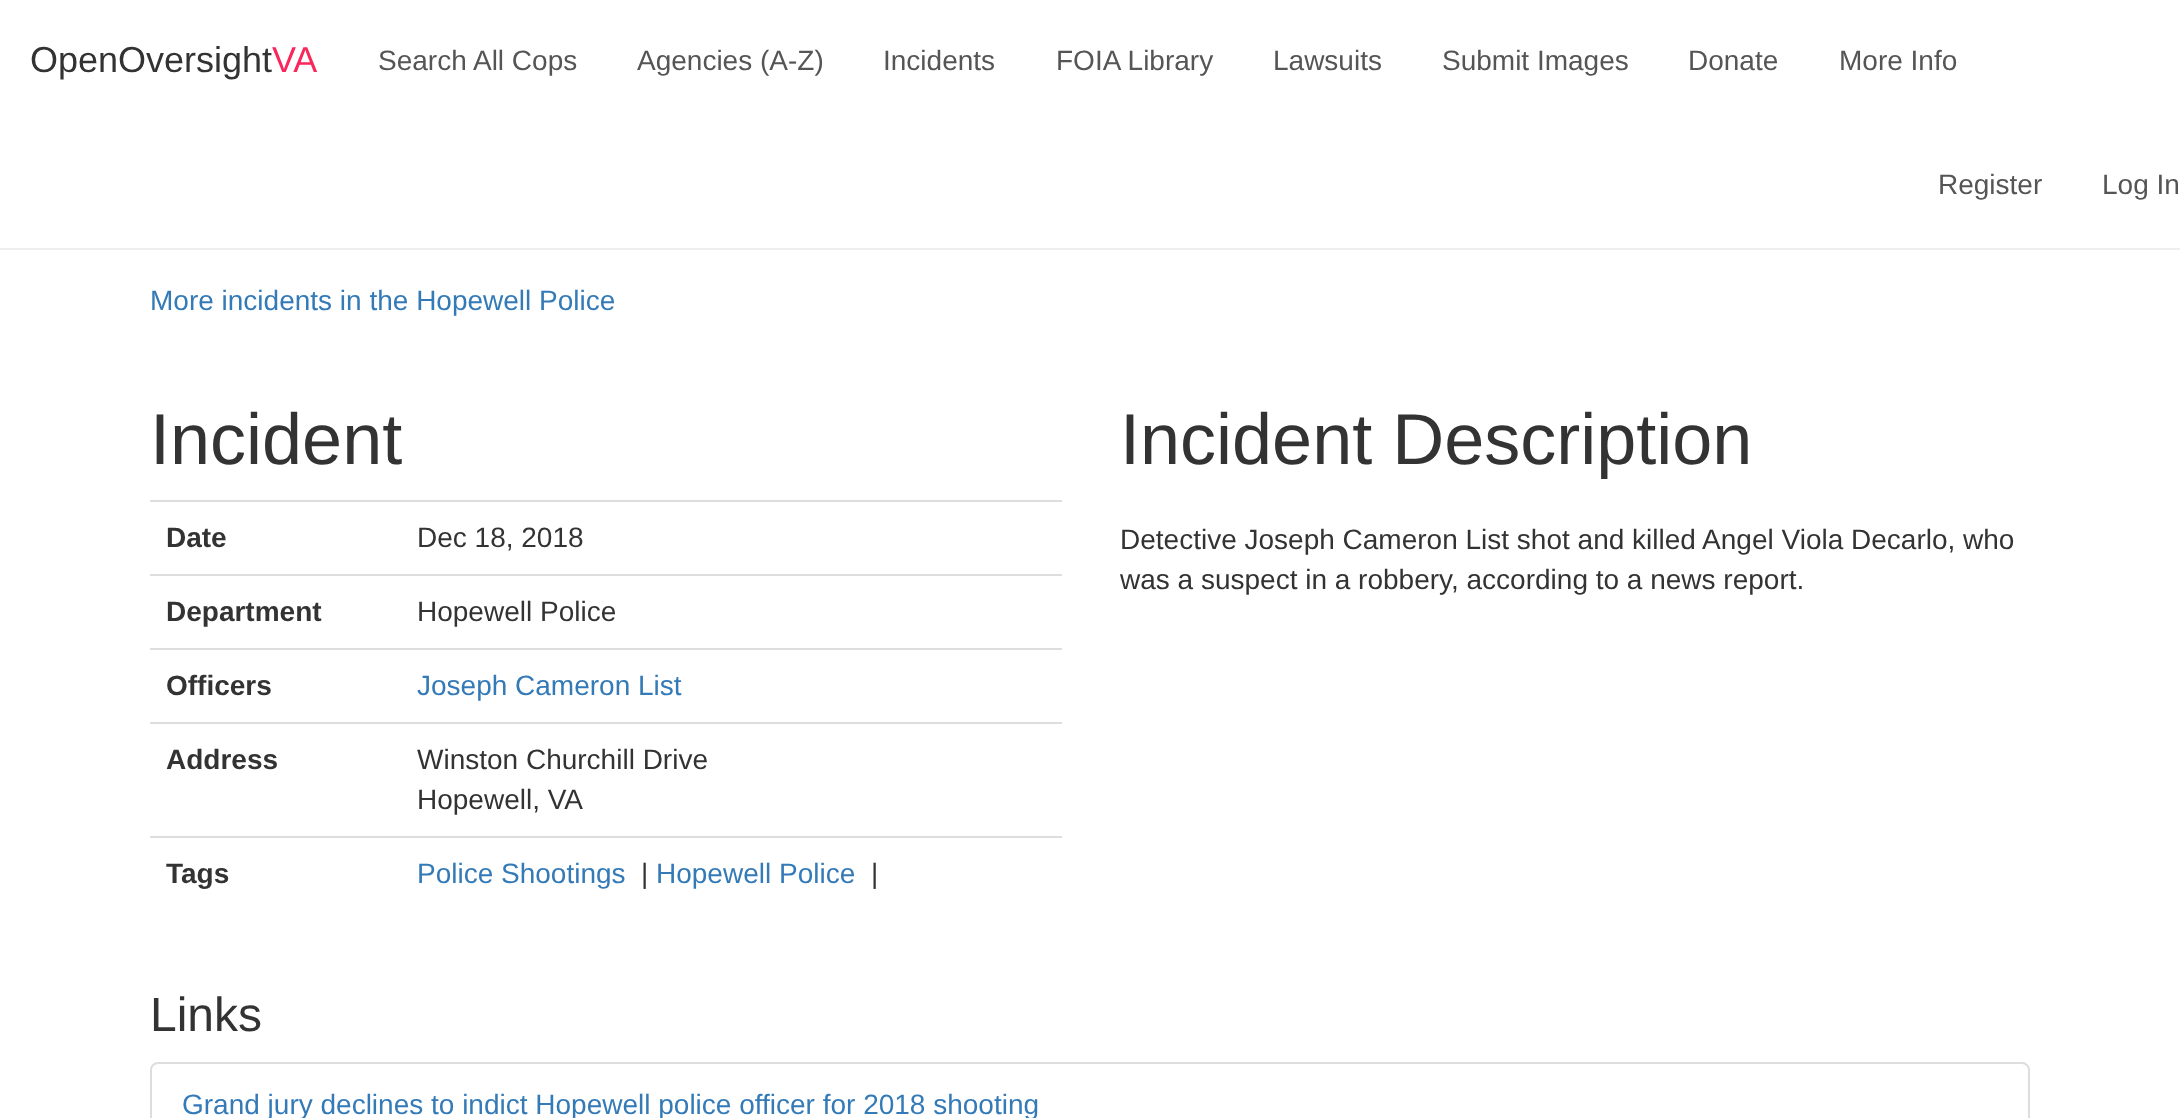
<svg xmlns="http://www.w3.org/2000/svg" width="2180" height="1118">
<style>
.a{font:36px Liberation Sans;fill:#333}
.b{font:36px Liberation Sans;fill:#f9285c}
.c{font:28px Liberation Sans;fill:#555}
.d{font:28px Liberation Sans;fill:#337ab7}
.e{font:72px Liberation Sans;fill:#333}
.f{font:bold 28px Liberation Sans;fill:#333}
.g{font:28px Liberation Sans;fill:#333}
.h{font:48px Liberation Sans;fill:#333}
</style>
<rect width="100%" height="100%" fill="#fff"/>
<path fill="#eee" d="M0 248h2180v2H0z"/>
<path fill="#ddd" d="M150 500h912v2H150z"/>
<path fill="#ddd" d="M150 574h912v2H150z"/>
<path fill="#ddd" d="M150 648h912v2H150z"/>
<path fill="#ddd" d="M150 722h912v2H150z"/>
<path fill="#ddd" d="M150 836h912v2H150z"/>
<rect fill="none" stroke="#ddd" stroke-width="2" x="151" y="1063" width="1878" height="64" rx="7"/>
<text class="a" x="30" y="72">OpenOversight</text>
<text class="b" x="272" y="72">VA</text>
<text class="c" x="378" y="70">Search All Cops</text>
<text class="c" x="637" y="70">Agencies (A-Z)</text>
<text class="c" x="883" y="70">Incidents</text>
<text class="c" x="1056" y="70">FOIA Library</text>
<text class="c" x="1273" y="70">Lawsuits</text>
<text class="c" x="1442" y="70">Submit Images</text>
<text class="c" x="1688" y="70">Donate</text>
<text class="c" x="1839" y="70">More Info</text>
<text class="c" x="1938" y="194">Register</text>
<text class="c" x="2102" y="194">Log In</text>
<text class="d" x="150" y="310">More incidents in the Hopewell Police</text>
<text class="e" x="150" y="464">Incident</text>
<text class="f" x="166" y="547">Date</text>
<text class="g" x="417" y="547">Dec 18, 2018</text>
<text class="f" x="166" y="621">Department</text>
<text class="g" x="417" y="621">Hopewell Police</text>
<text class="f" x="166" y="695">Officers</text>
<text class="d" x="417" y="695">Joseph Cameron List</text>
<text class="f" x="166" y="769">Address</text>
<text class="g" x="417" y="769">Winston Churchill Drive</text>
<text class="g" x="417" y="809">Hopewell, VA</text>
<text class="f" x="166" y="883">Tags</text>
<text class="d" x="417" y="883">Police Shootings</text>
<text class="g" x="641" y="883">|</text>
<text class="d" x="656" y="883">Hopewell Police</text>
<text class="g" x="871" y="883">|</text>
<text class="e" x="1120" y="464">Incident Description</text>
<text class="g" x="1120" y="549">Detective Joseph Cameron List shot and killed Angel Viola Decarlo, who</text>
<text class="g" x="1120" y="589">was a suspect in a robbery, according to a news report.</text>
<text class="h" x="150" y="1031">Links</text>
<text class="d" x="182" y="1114">Grand jury declines to indict Hopewell police officer for 2018 shooting</text>
</svg>
